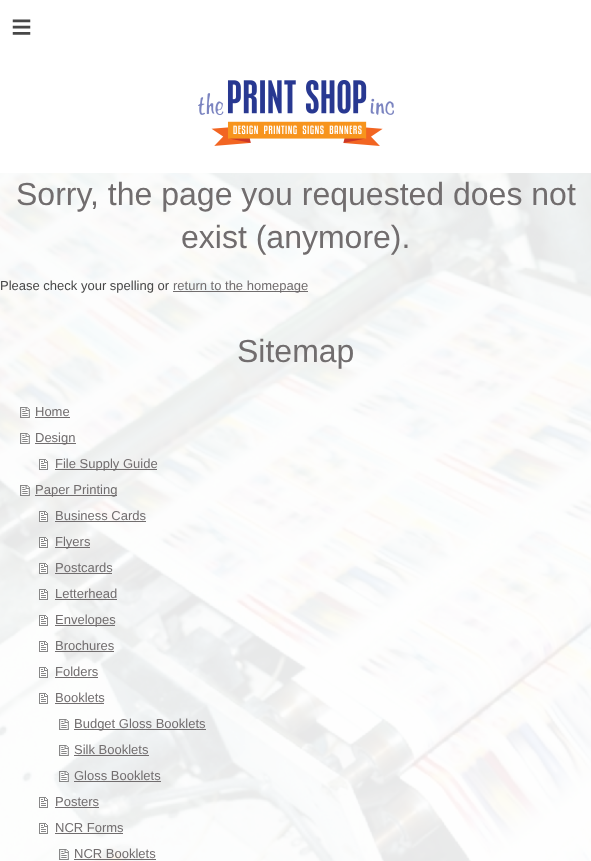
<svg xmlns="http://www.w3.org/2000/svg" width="591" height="861">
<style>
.a{font:36px Liberation Sans;letter-spacing:10px;fill:#474747}
.b{font:32px Liberation Sans;fill:#716d6e}
.c{font:13px Liberation Sans;fill:#474747}
.d{font:13px Liberation Sans;fill:#716d6e}
</style>
<rect width="100%" height="100%" fill="#fff"/>
<image href="1.png" x="0" y="173" width="591" height="688"/>
<image href="2.png" x="198" y="80" width="196" height="66"/>
<path fill="#ffffffe6" d="M0 173h591v688H0z"/>
<path fill="#716d6e" d="M173 291h135v1H173z"/>
<image href="3.png" x="20" y="407" width="10" height="11"/>
<path fill="#716d6e" d="M35 417h35v1H35z"/>
<image href="4.png" x="20" y="433" width="10" height="11"/>
<path fill="#716d6e" d="M35 443h41v1H35z"/>
<image href="5.png" x="39" y="459" width="9" height="11"/>
<path fill="#716d6e" d="M55 469h102v1H55z"/>
<image href="6.png" x="20" y="485" width="10" height="11"/>
<path fill="#716d6e" d="M35 495h82v1H35z"/>
<image href="7.png" x="39" y="511" width="9" height="11"/>
<path fill="#716d6e" d="M55 521h91v1H55z"/>
<image href="8.png" x="39" y="537" width="9" height="11"/>
<path fill="#716d6e" d="M55 547h35v1H55z"/>
<image href="9.png" x="39" y="563" width="9" height="11"/>
<path fill="#716d6e" d="M55 573h57v1H55z"/>
<image href="10.png" x="39" y="589" width="9" height="11"/>
<path fill="#716d6e" d="M55 599h62v1H55z"/>
<image href="11.png" x="39" y="615" width="9" height="11"/>
<path fill="#716d6e" d="M55 625h60v1H55z"/>
<image href="12.png" x="39" y="641" width="9" height="11"/>
<path fill="#716d6e" d="M55 651h59v1H55z"/>
<image href="11.png" x="39" y="667" width="9" height="11"/>
<path fill="#716d6e" d="M55 677h43v1H55z"/>
<image href="12.png" x="39" y="693" width="9" height="11"/>
<path fill="#716d6e" d="M55 703h49v1H55z"/>
<image href="13.png" x="59" y="719" width="10" height="11"/>
<path fill="#716d6e" d="M74 729h132v1H74z"/>
<image href="13.png" x="59" y="745" width="10" height="11"/>
<path fill="#716d6e" d="M74 755h75v1H74z"/>
<image href="14.png" x="59" y="771" width="10" height="11"/>
<path fill="#716d6e" d="M74 781h87v1H74z"/>
<image href="12.png" x="39" y="797" width="9" height="11"/>
<path fill="#716d6e" d="M55 807h44v1H55z"/>
<image href="12.png" x="39" y="823" width="9" height="11"/>
<path fill="#716d6e" d="M55 833h68v1H55z"/>
<image href="15.png" x="59" y="849" width="10" height="11"/>
<path fill="#716d6e" d="M74 859h82v1H74z"/>
<text class="a" x="11" y="39">≡</text>
<text class="b" x="16" y="205">Sorry, the page you requested does not</text>
<text class="b" x="181" y="248">exist (anymore).</text>
<text class="c" x="0" y="290">Please check your spelling or</text>
<text class="d" x="173" y="290">return to the homepage</text>
<text class="b" x="237" y="362">Sitemap</text>
<text class="d" x="35" y="416">Home</text>
<text class="d" x="35" y="442">Design</text>
<text class="d" x="55" y="468">File Supply Guide</text>
<text class="d" x="35" y="494">Paper Printing</text>
<text class="d" x="55" y="520">Business Cards</text>
<text class="d" x="55" y="546">Flyers</text>
<text class="d" x="55" y="572">Postcards</text>
<text class="d" x="55" y="598">Letterhead</text>
<text class="d" x="55" y="624">Envelopes</text>
<text class="d" x="55" y="650">Brochures</text>
<text class="d" x="55" y="676">Folders</text>
<text class="d" x="55" y="702">Booklets</text>
<text class="d" x="74" y="728">Budget Gloss Booklets</text>
<text class="d" x="74" y="754">Silk Booklets</text>
<text class="d" x="74" y="780">Gloss Booklets</text>
<text class="d" x="55" y="806">Posters</text>
<text class="d" x="55" y="832">NCR Forms</text>
<text class="d" x="74" y="858">NCR Booklets</text>
</svg>
